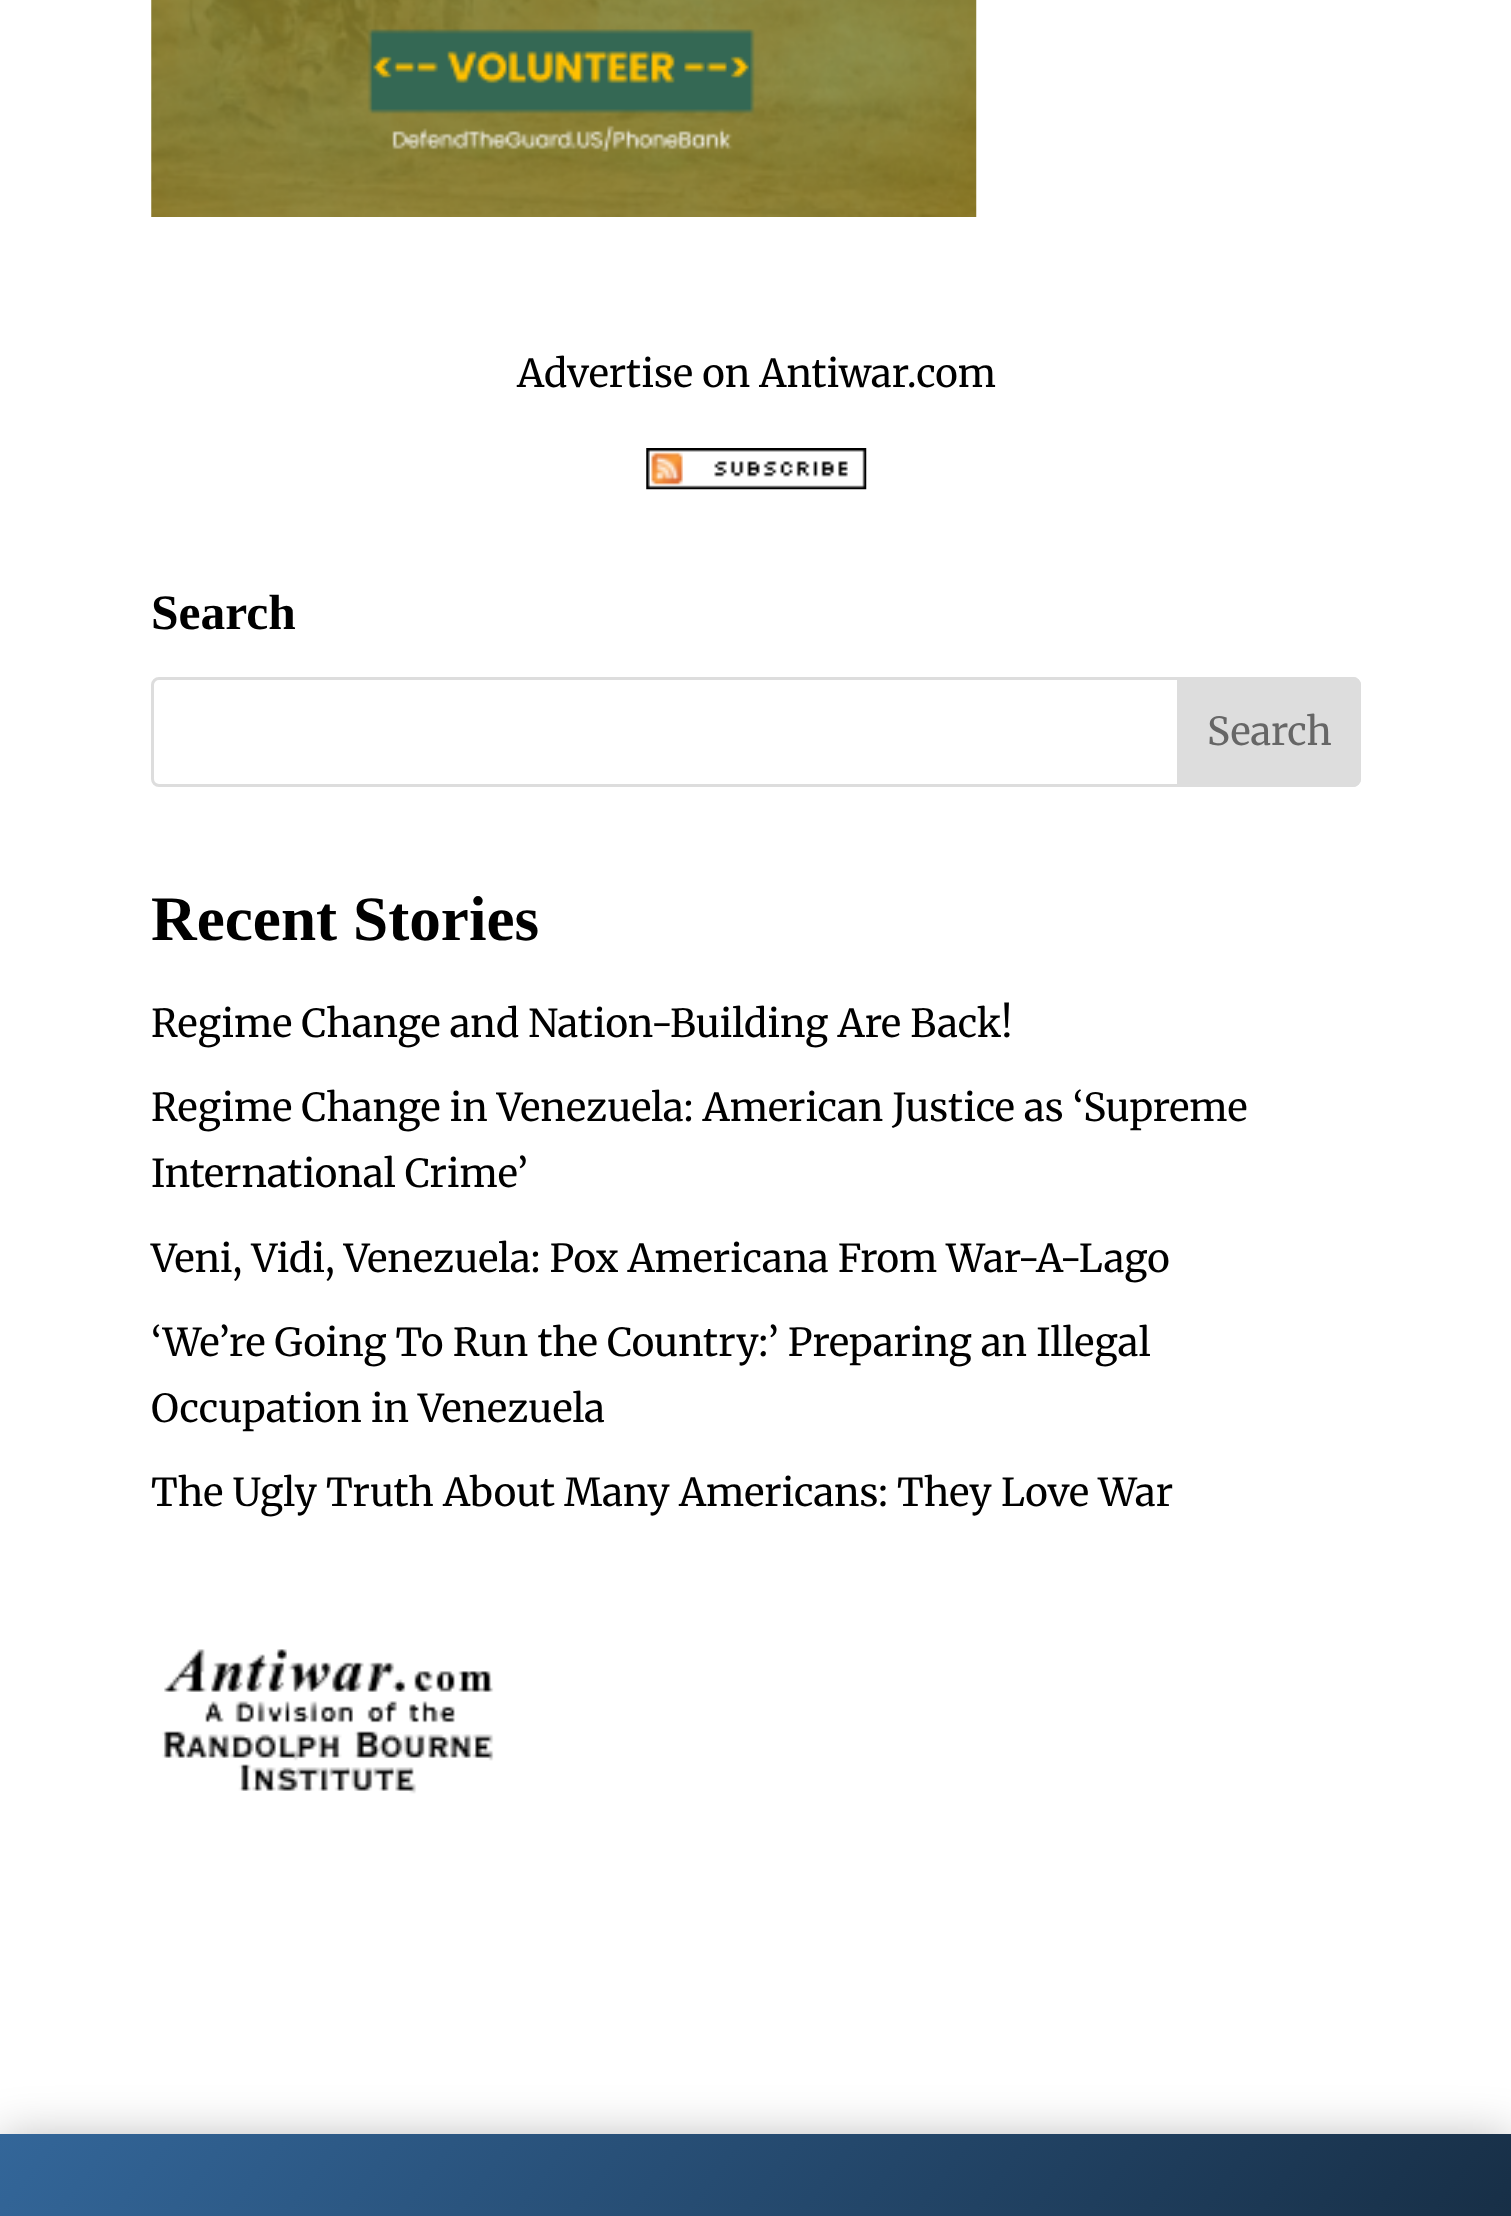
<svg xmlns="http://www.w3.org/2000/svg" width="1511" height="2216">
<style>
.a{font:38.5px Merriweather;fill:#000}
.b{font:bold 49.5px Liberation Serif;fill:#000}
.c{font:38.5px Merriweather;fill:#666}
.d{font:bold 63.25px Liberation Serif;fill:#000}
</style>
<defs>
<linearGradient id="g1" gradientUnits="userSpaceOnUse" x1="-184" y1="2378" x2="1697" y2="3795"><stop offset="0" stop-color="#369"/><stop offset="0.99" stop-color="#000"/></linearGradient>
</defs>
<rect width="100%" height="100%" fill="#fff"/>
<image href="1.png" x="151" y="0" width="826" height="217"/>
<image href="2.png" x="646" y="448" width="221" height="42"/>
<rect fill="none" stroke="#ddd" stroke-width="3" x="152.5" y="678.5" width="1207" height="107" rx="6.5"/>
<path fill="#ddd" stroke="#ddd" stroke-width="3" d="M1178.5 678.5h174.5c3.5 0 6.5 3 6.5 6.5v94c0 3.5-3 6.5-6.5 6.5h-174.5z"/>
<image href="3.png" x="162" y="1649" width="332" height="145"/>
<path fill="#0000004d" filter="blur(25px)" d="M0 2140h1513v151H0z"/>
<path fill="url(#g1)" d="M0 2134h1511v82H0z"/>
<text class="a" x="517" y="387">Advertise on Antiwar.com</text>
<text class="b" x="151" y="629">Search</text>
<text class="c" x="1207" y="745">Search</text>
<text class="d" x="151" y="940">Recent Stories</text>
<text class="a" x="151" y="1037">Regime Change and Nation-Building Are Back!</text>
<text class="a" x="151" y="1121">Regime Change in Venezuela: American Justice as ‘Supreme</text>
<text class="a" x="151" y="1187">International Crime’</text>
<text class="a" x="151" y="1272">Veni, Vidi, Venezuela: Pox Americana From War-A-Lago</text>
<text class="a" x="151" y="1356">‘We’re Going To Run the Country:’ Preparing an Illegal</text>
<text class="a" x="151" y="1422">Occupation in Venezuela</text>
<text class="a" x="151" y="1506">The Ugly Truth About Many Americans: They Love War</text>
</svg>
